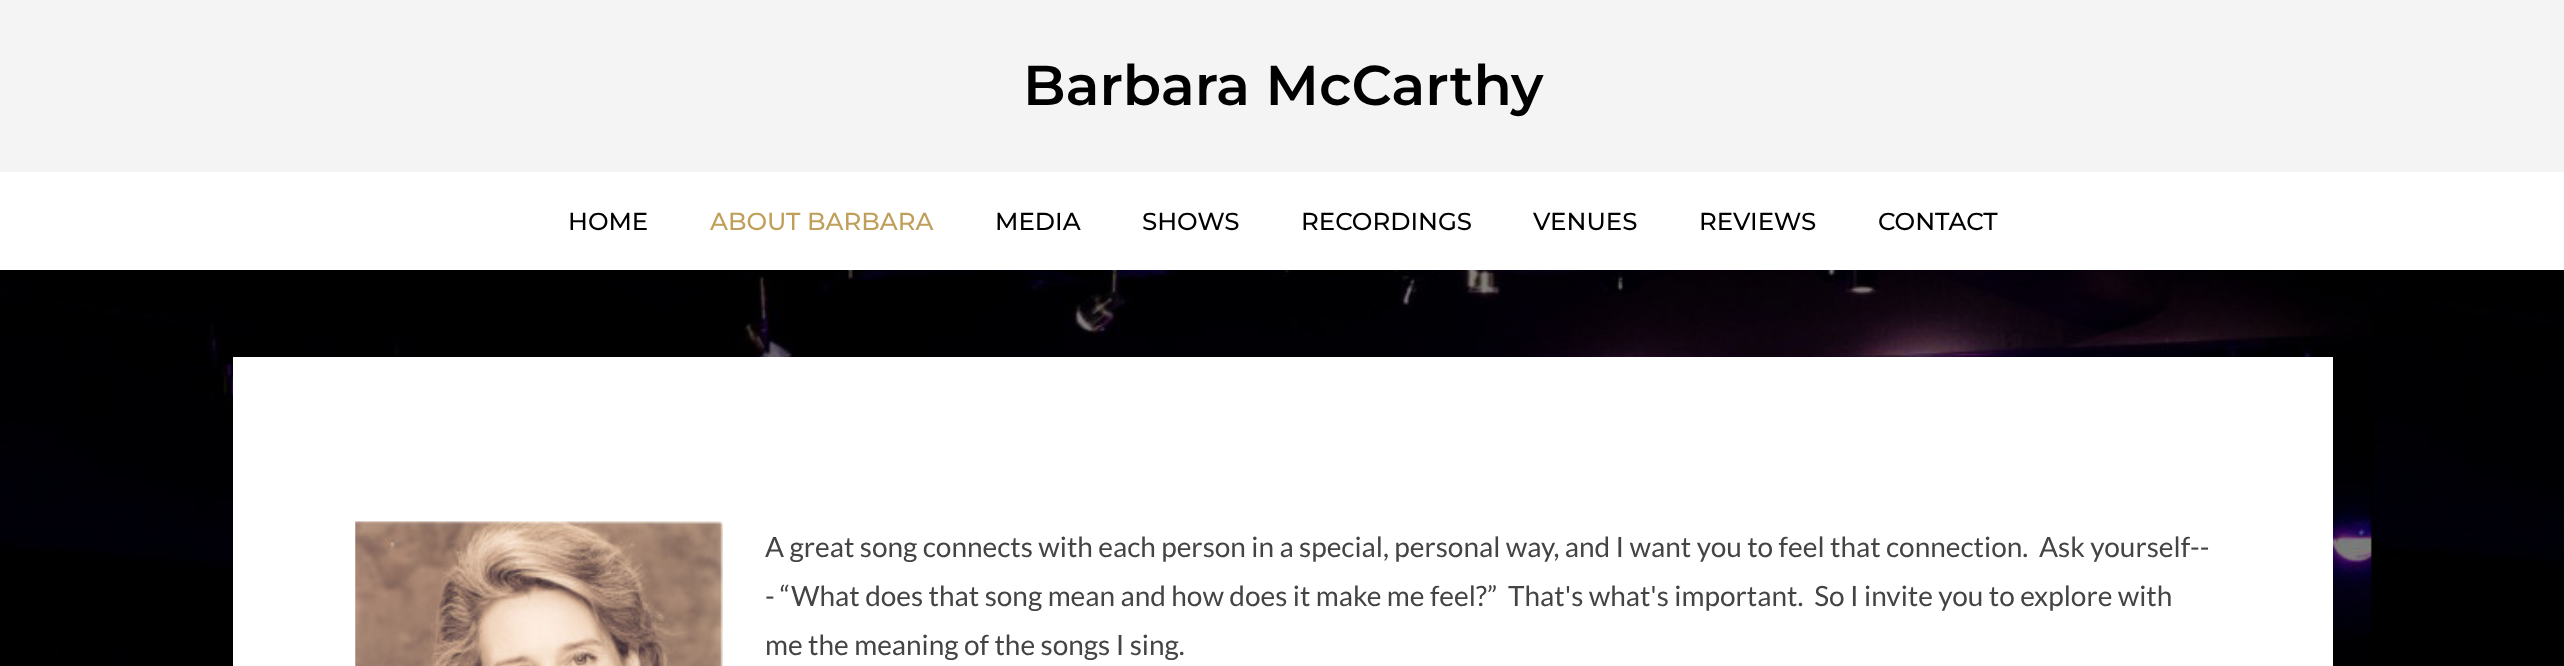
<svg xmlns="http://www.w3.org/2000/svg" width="2564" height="666">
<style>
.a{font:600 56px Montserrat;fill:#000}
.b{font:500 24.5px Montserrat;fill:#000}
.c{font:500 24.5px Montserrat;fill:#c09f5a}
.d{font:28px Lato;fill:#444}
</style>
<rect width="100%" height="100%" fill="#000"/>
<image href="1.png" x="0" y="270" width="2564" height="396"/>
<path fill="#f4f4f4" d="M0 0h2564v172H0z"/>
<path fill="#fff" d="M0 172h2564v98H0z"/>
<path fill="#fff" d="M233 357h2100v309H233z"/>
<image href="2.png" x="355" y="521" width="368" height="145"/>
<text class="a" x="1023" y="105">Barbara McCarthy</text>
<text class="b" x="568" y="230">HOME</text>
<text class="c" x="710" y="230">ABOUT BARBARA</text>
<text class="b" x="995" y="230">MEDIA</text>
<text class="b" x="1142" y="230">SHOWS</text>
<text class="b" x="1301" y="230">RECORDINGS</text>
<text class="b" x="1533" y="230">VENUES</text>
<text class="b" x="1699" y="230">REVIEWS</text>
<text class="b" x="1878" y="230">CONTACT</text>
<text class="d" xml:space="preserve" x="765" y="557">A great song connects with each person in a special, personal way, and I want you to feel that connection.  Ask yourself--</text>
<text class="d" xml:space="preserve" x="765" y="606">- “What does that song mean and how does it make me feel?”  That's what's important.  So I invite you to explore with</text>
<text class="d" x="765" y="655">me the meaning of the songs I sing.</text>
</svg>
